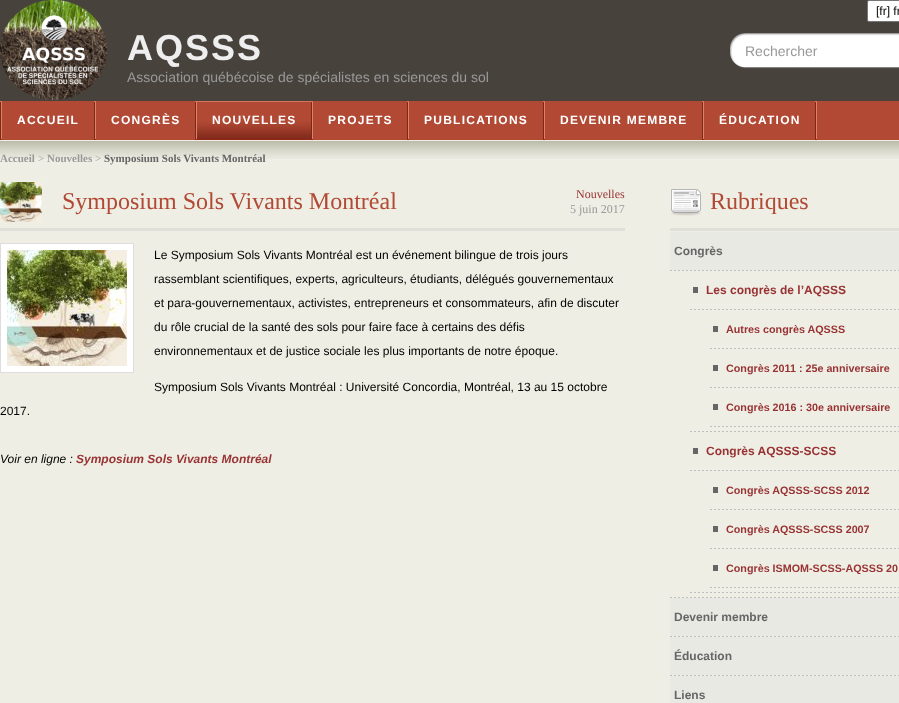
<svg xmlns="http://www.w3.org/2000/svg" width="899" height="703">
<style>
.a{font:12px Liberation Sans;fill:#000}
.b{font:bold 36px Liberation Sans;letter-spacing:2px;fill:#eee}
.c{font:14px Liberation Sans;fill:#999}
.d{font:bold 11px Liberation Serif;fill:#999}
.e{font:11px Liberation Serif;fill:#999}
.f{font:bold 11px Liberation Serif;fill:#666}
.g{font:24px Liberation Serif;fill:#b14934}
.h{font:12px Liberation Serif;fill:#933}
.i{font:12px Liberation Serif;fill:#999}
.j{font:italic 12px Liberation Sans;fill:#000}
.k{font:italic bold 12px Liberation Sans;fill:#933}
.l{font:bold 12px Liberation Sans;fill:#666}
.m{font:bold 12px Liberation Sans;fill:#933}
.n{font:bold 10.75px Liberation Sans;fill:#933}
.o{font:bold 12px Liberation Sans;letter-spacing:1.25px;fill:#fff}
</style>
<rect width="100%" height="100%" fill="#eeeee5"/>
<path fill="#48423d" d="M0 0h899v101H0z"/>
<rect fill="#fff" stroke="#767676" x="867.5" y="0.5" width="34" height="21" rx="1.5"/>
<image href="1.png" x="0" y="0" width="107" height="100"/>
<image href="2.png" x="0" y="141" width="899" height="18"/>
<path fill="#e0e0da" d="M0 228h625v3H0z"/>
<image href="3.png" x="0" y="182" width="42" height="40"/>
<path fill="#fff" stroke="#ddd" d="M0.5 243.5h133v129H0.5z"/>
<image href="4.png" x="7" y="250" width="120" height="116"/>
<image href="5.png" x="730" y="33" width="169" height="36"/>
<image href="6.png" x="671" y="189" width="30" height="27"/>
<path fill="#e0e0da" d="M670 228h229v3H670z"/>
<image href="7.png" x="670" y="597" width="229" height="1"/>
<path fill="#e9e9e3" d="M670 232h229v38H670z"/>
<image href="7.png" x="670" y="270" width="229" height="1"/>
<image href="8.png" x="690" y="431" width="209" height="1"/>
<path fill="#666" d="M693 287h5v6H693z"/>
<image href="8.png" x="690" y="309" width="209" height="1"/>
<image href="9.png" x="710" y="348" width="189" height="1"/>
<path fill="#666" d="M713 326h5v6H713z"/>
<image href="9.png" x="710" y="387" width="189" height="1"/>
<path fill="#666" d="M713 365h5v6H713z"/>
<image href="9.png" x="710" y="426" width="189" height="1"/>
<path fill="#666" d="M713 404h5v6H713z"/>
<image href="8.png" x="690" y="592" width="209" height="1"/>
<path fill="#666" d="M693 448h5v6H693z"/>
<image href="8.png" x="690" y="470" width="209" height="1"/>
<image href="9.png" x="710" y="509" width="189" height="1"/>
<path fill="#666" d="M713 487h5v6H713z"/>
<image href="9.png" x="710" y="548" width="189" height="1"/>
<path fill="#666" d="M713 526h5v6H713z"/>
<image href="9.png" x="710" y="587" width="189" height="1"/>
<path fill="#666" d="M713 565h5v6H713z"/>
<image href="7.png" x="670" y="636" width="229" height="1"/>
<path fill="#e9e9e3" d="M670 598h229v38H670z"/>
<image href="7.png" x="670" y="675" width="229" height="1"/>
<path fill="#e9e9e3" d="M670 637h229v38H670z"/>
<path fill="#e9e9e3" d="M670 676h229v27H670z"/>
<path fill="#b14934" d="M2 101h897v39H2z"/>
<image href="10.png" x="0" y="101" width="2" height="39"/>
<image href="10.png" x="94" y="101" width="2" height="39"/>
<image href="10.png" x="195" y="101" width="2" height="39"/>
<image href="10.png" x="311" y="101" width="2" height="39"/>
<image href="11.png" x="197" y="101" width="114" height="39"/>
<image href="10.png" x="407" y="101" width="2" height="39"/>
<image href="10.png" x="543" y="101" width="2" height="39"/>
<image href="10.png" x="702" y="101" width="2" height="39"/>
<image href="10.png" x="815" y="101" width="2" height="39"/>
<text class="a" x="876" y="15">[fr] fr</text>
<text class="b" x="127" y="60">AQSSS</text>
<text class="c" x="127" y="82">Association québécoise de spécialistes en sciences du sol</text>
<text class="d" x="0" y="162">Accueil</text>
<text class="e" x="38" y="162">&gt;</text>
<text class="d" x="47" y="162">Nouvelles</text>
<text class="e" x="95" y="162">&gt;</text>
<text class="f" x="104" y="162">Symposium Sols Vivants Montréal</text>
<text class="g" x="62" y="209">Symposium Sols Vivants Montréal</text>
<text class="h" x="576" y="198">Nouvelles</text>
<text class="i" x="570" y="213">5 juin 2017</text>
<text class="a" x="154" y="259">Le Symposium Sols Vivants Montréal est un événement bilingue de trois jours</text>
<text class="a" x="154" y="283">rassemblant scientifiques, experts, agriculteurs, étudiants, délégués gouvernementaux</text>
<text class="a" x="154" y="307">et para-gouvernementaux, activistes, entrepreneurs et consommateurs, afin de discuter</text>
<text class="a" x="154" y="331">du rôle crucial de la santé des sols pour faire face à certains des défis</text>
<text class="a" x="154" y="355">environnementaux et de justice sociale les plus importants de notre époque.</text>
<text class="a" x="154" y="391">Symposium Sols Vivants Montréal : Université Concordia, Montréal, 13 au 15 octobre</text>
<text class="a" x="0" y="415">2017.</text>
<text class="j" x="0" y="463">Voir en ligne :</text>
<text class="k" x="76" y="463">Symposium Sols Vivants Montréal</text>
<text class="c" x="745" y="56">Rechercher</text>
<text class="g" x="710" y="209">Rubriques</text>
<text class="l" x="674" y="255">Congrès</text>
<text class="m" x="706" y="294">Les congrès de l’AQSSS</text>
<text class="n" x="726" y="333">Autres congrès AQSSS</text>
<text class="n" x="726" y="372">Congrès 2011 : 25e anniversaire</text>
<text class="n" x="726" y="411">Congrès 2016 : 30e anniversaire</text>
<text class="m" x="706" y="455">Congrès AQSSS-SCSS</text>
<text class="n" x="726" y="494">Congrès AQSSS-SCSS 2012</text>
<text class="n" x="726" y="533">Congrès AQSSS-SCSS 2007</text>
<text class="n" x="726" y="572">Congrès ISMOM-SCSS-AQSSS 20</text>
<text class="l" x="674" y="621">Devenir membre</text>
<text class="l" x="674" y="660">Éducation</text>
<text class="l" x="674" y="699">Liens</text>
<text class="o" x="17" y="124">ACCUEIL</text>
<text class="o" x="111" y="124">CONGRÈS</text>
<text class="o" x="212" y="124">NOUVELLES</text>
<text class="o" x="328" y="124">PROJETS</text>
<text class="o" x="424" y="124">PUBLICATIONS</text>
<text class="o" x="560" y="124">DEVENIR MEMBRE</text>
<text class="o" x="719" y="124">ÉDUCATION</text>
</svg>
